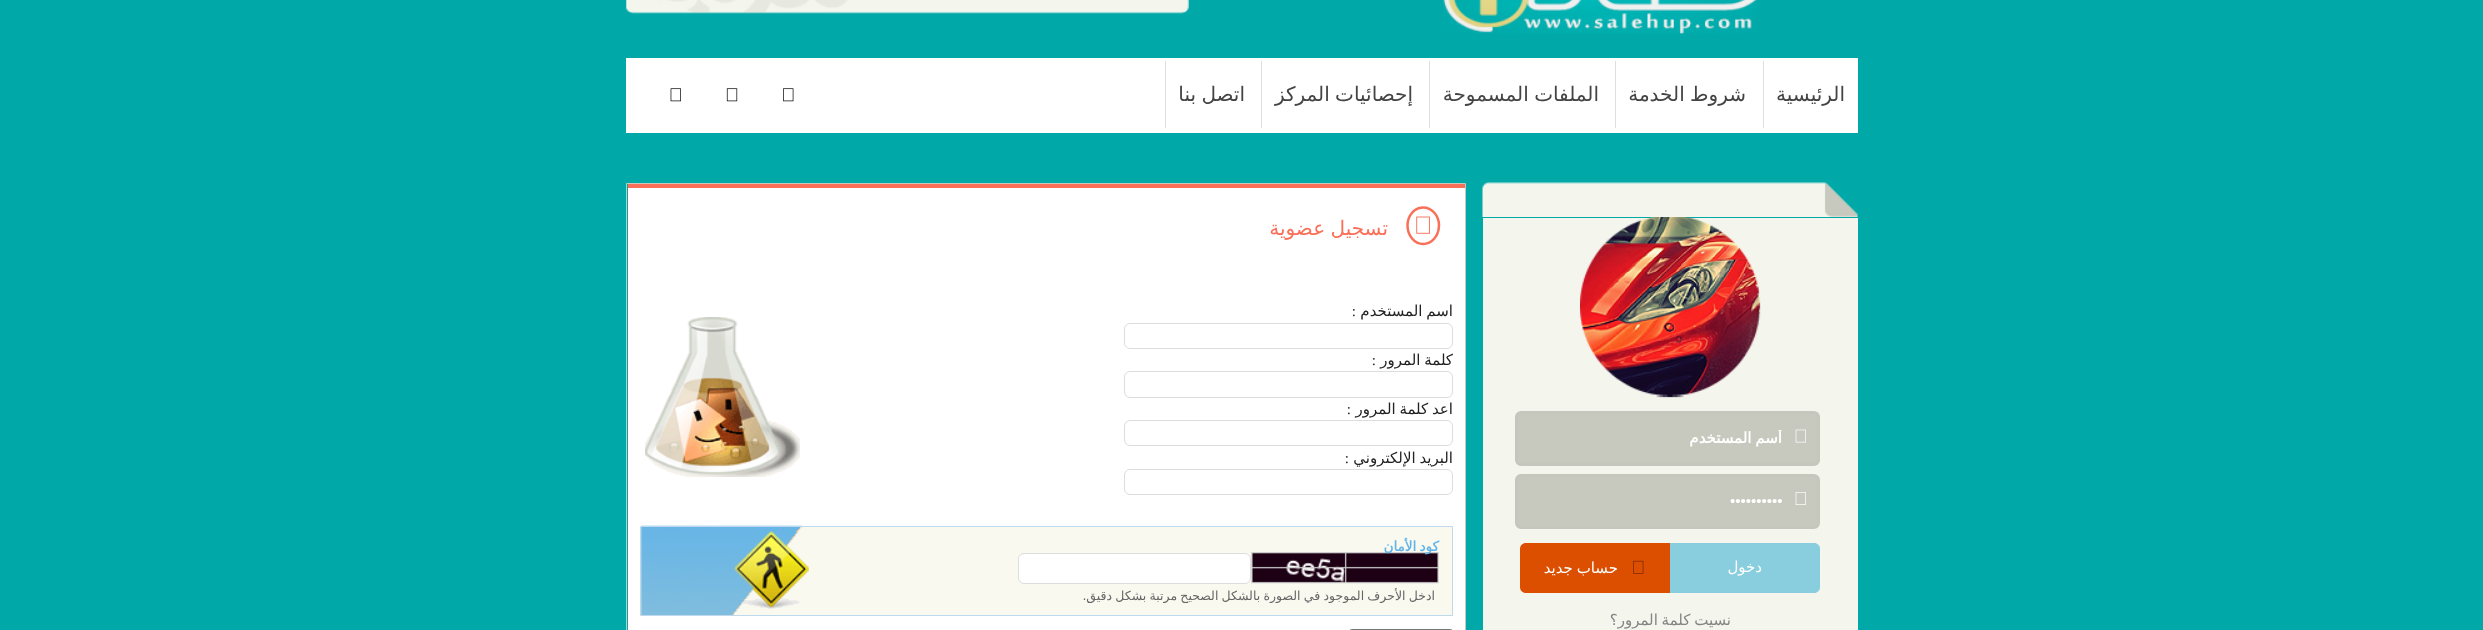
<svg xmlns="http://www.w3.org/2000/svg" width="2483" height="630">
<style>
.a{font:20px DejaVu Sans;direction:rtl;fill:#444}
.b{font:bold 15px DejaVu Sans;direction:rtl;fill:#fff}
.c{font:bold 15px Liberation Serif;fill:#fff}
.d{font:15px DejaVu Sans;direction:rtl;fill:#fff}
.e{font:15px DejaVu Sans;direction:rtl;fill:#848484}
.f{font:20px DejaVu Sans;direction:rtl;fill:#fa6f57}
.g{font:15px DejaVu Sans;direction:rtl;fill:#222}
.h{font:15px Liberation Serif;direction:rtl;fill:#222}
.i{font:bold 13.5px DejaVu Sans;direction:rtl;fill:#62b4e8}
.j{font:12.5px DejaVu Sans;direction:rtl;fill:#666}
</style>
<defs>
<clipPath id="clip1"><path d="M1518 430h300v19H1518z"/></clipPath>
</defs>
<rect width="100%" height="100%" fill="#00a8a8"/>
<image href="1.png" x="1443" y="0" width="314" height="34"/>
<image href="2.png" x="626" y="0" width="563" height="14"/>
<path fill="#fff" d="M626 58h1232v75H626z"/>
<path fill="#dfdfdf" d="M1763 61h1v67H1763z"/>
<path fill="#dfdfdf" d="M1615 61h1v67H1615z"/>
<path fill="#dfdfdf" d="M1429 61h1v67H1429z"/>
<path fill="#dfdfdf" d="M1261 61h1v67H1261z"/>
<path fill="#dfdfdf" d="M1165 61h1v67H1165z"/>
<image href="3.png" x="783" y="88" width="11" height="14"/>
<image href="4.png" x="726" y="88" width="12" height="14"/>
<image href="5.png" x="670" y="88" width="11" height="14"/>
<image href="6.png" x="1482" y="182" width="376" height="35"/>
<path fill="#f4f5ed" d="M1483 218h375v412H1483z"/>
<image href="7.png" x="1580" y="217" width="181" height="181"/>
<rect fill="#c7c9be" stroke="#c5c7bc" stroke-width="3" x="1516.5" y="412.5" width="302" height="52" rx="4.5"/>
<image href="8.png" x="1795" y="429" width="11" height="14"/>
<rect fill="#c7c9be" stroke="#c5c7bc" stroke-width="3" x="1516.5" y="475.5" width="302" height="52" rx="4.5"/>
<image href="9.png" x="1795" y="492" width="11" height="13"/>
<path fill="#89cede" d="M1670 543h144c3.5 0 6 2.5 6 6v38c0 3.5-2.5 6-6 6h-144z"/>
<path fill="#dc4e00" d="M1526 543h144v50h-144c-3.5 0-6-2.5-6-6v-38c0-3.5 2.5-6 6-6z"/>
<image href="10.png" x="1633" y="560" width="11" height="14"/>
<path fill="none" stroke="#c7c9be" d="M626.5 183.5h839v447H626.5z"/>
<path fill="#fff" d="M628 188h837v442H628z"/>
<path fill="#fa6f57" d="M628 184h837v4H628z"/>
<path fill="none" stroke="#fa6f57" stroke-width="2.5" d="M1423 207.5c9 0 16 8 16 18c0 10-7 18.5-16 18.5c-8.5 0-15.5-8.5-15.5-18.5c0-10 7-18 15.5-18z"/>
<image href="11.png" x="1416" y="216" width="14" height="18"/>
<image href="12.png" x="645" y="317" width="155" height="160"/>
<rect fill="none" stroke="#ddd" x="1124.5" y="323.5" width="328" height="25" rx="5.5"/>
<rect fill="none" stroke="#ddd" x="1124.5" y="371.5" width="328" height="26" rx="5.5"/>
<rect fill="none" stroke="#ddd" x="1124.5" y="420.5" width="328" height="25" rx="5.5"/>
<rect fill="none" stroke="#ddd" x="1124.5" y="469.5" width="328" height="25" rx="5.5"/>
<path fill="#f9f9f0" d="M641 527h811v88H641z"/>
<image href="13.png" x="641" y="525" width="168" height="90"/>
<path fill="none" stroke="#bed9ed" d="M640.5 526.5h812v89H640.5z"/>
<image href="14.png" x="1251" y="552" width="188" height="32"/>
<rect fill="#fff" stroke="#ddd" x="1018.5" y="553.5" width="232" height="30" rx="5.5"/>
<rect fill="none" stroke="#767676" x="1349.5" y="629.5" width="103" height="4" rx="2"/>
<text class="a" x="1845" y="101">الرئيسية</text>
<text class="a" x="1746" y="101" word-spacing="-1">شروط الخدمة</text>
<text class="a" x="1599" y="101" word-spacing="-1">الملفات المسموحة</text>
<text class="a" x="1413" y="101" word-spacing="-1">إحصائيات المركز</text>
<text class="a" x="1245" y="101" word-spacing="-1">اتصل بنا</text>
<g clip-path="url(#clip1)">
<text class="b" x="1782" y="443" word-spacing="-1">أسم المستخدم</text>
</g>
<text class="c" x="1730" y="506">••••••••••</text>
<text class="d" x="1762" y="572">دخول</text>
<text class="d" x="1618" y="573" word-spacing="-1">حساب جديد</text>
<text class="e" x="1731" y="625" word-spacing="-1">نسيت كلمة المرور؟</text>
<text class="f" x="1388" y="235" word-spacing="-1">تسجيل عضوية</text>
<text class="g" x="1453" y="316" word-spacing="-1">اسم المستخدم</text>
<text class="h" x="1356" y="316">:</text>
<text class="g" x="1453" y="365" word-spacing="-1">كلمة المرور</text>
<text class="h" x="1376" y="365">:</text>
<text class="g" x="1453" y="414" word-spacing="-1">اعد كلمة المرور</text>
<text class="h" x="1351" y="414">:</text>
<text class="g" x="1453" y="463" word-spacing="-1">البريد الإلكتروني</text>
<text class="h" x="1349" y="463">:</text>
<text class="i" x="1439" y="551" word-spacing="-1">كود الأمان</text>
<text class="j" x="1435" y="600" word-spacing="-0.75">ادخل الأحرف الموجود في الصورة بالشكل الصحيح مرتبة بشكل دقيق.</text>
</svg>
